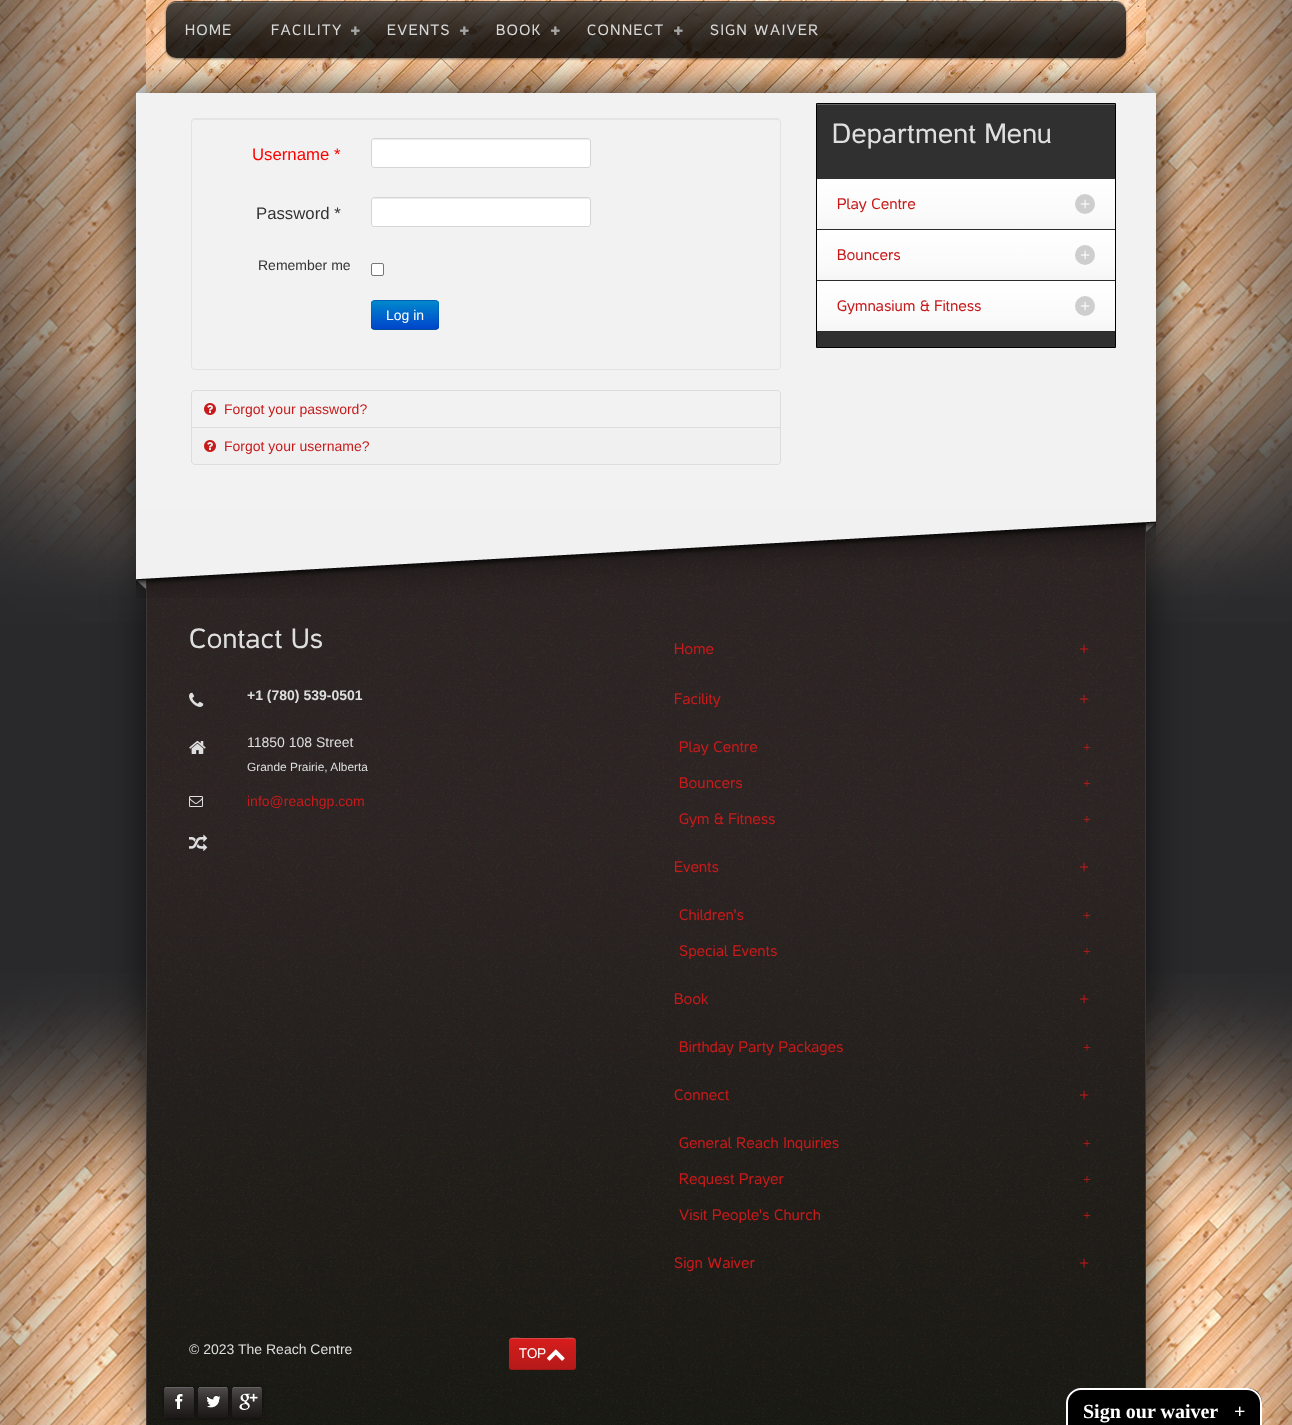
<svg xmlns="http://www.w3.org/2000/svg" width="1292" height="1425">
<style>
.a{font:15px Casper;letter-spacing:1.5px;fill:#d8d8d8}
.b{font:16.75px Liberation Sans;fill:#f00}
.c{font:16.75px Liberation Sans;fill:#333}
.d{font:14px Liberation Sans;fill:#333}
.e{font:14px Liberation Sans;fill:#fff}
.f{font:14px Liberation Sans;fill:#c71b1b}
.g{font:28px Casper;fill:#dfdfdf}
.h{font:15.4px Casper;fill:#c71b1b}
.i{font:18px Liberation Serif;fill:#fff}
.j{font:bold 14px Liberation Sans;fill:#dfdfdf}
.k{font:14px Liberation Sans;fill:#dfdfdf}
.l{font:11.9px Liberation Sans;fill:#dfdfdf}
.m{font:18px Liberation Serif;fill:#c71b1b}
.n{font:14px Liberation Serif;fill:#c71b1b}
.o{font:14px Casper;fill:#fff}
.p{font:bold 20px Liberation Serif;fill:#fff}
</style>
<defs>
<clipPath id="clip1"><path d="M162 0h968v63h-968zm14 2h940c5.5 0 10 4.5 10 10v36c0 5.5-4.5 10-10 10h-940c-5.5 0-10-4.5-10-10v-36c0-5.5 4.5-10 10-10z" clip-rule="evenodd"/></clipPath>
<linearGradient id="g1" gradientUnits="userSpaceOnUse" x1="646" y1="499" x2="646" y2="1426"><stop offset="0" stop-color="#2c2423"/><stop offset="0.35" stop-color="#2c2423"/><stop offset="1" stop-color="#191913"/></linearGradient>
<linearGradient id="g2" gradientUnits="userSpaceOnUse" x1="646" y1="2" x2="646" y2="58"><stop offset="0" stop-color="#333" stop-opacity="0.7"/><stop offset="0.75" stop-color="#000" stop-opacity="0.7"/><stop offset="1" stop-color="#000" stop-opacity="0.7"/></linearGradient>
<clipPath id="clip2"><rect x="371" y="300" width="68" height="30" rx="4"/></clipPath>
<linearGradient id="g3" gradientUnits="userSpaceOnUse" x1="405" y1="301" x2="405" y2="329"><stop offset="0" stop-color="#08c"/><stop offset="1" stop-color="#04c"/></linearGradient>
<linearGradient id="g4" gradientUnits="userSpaceOnUse" x1="966" y1="179" x2="966" y2="229"><stop offset="0" stop-color="#fff"/><stop offset="0.75" stop-color="#fafafa"/><stop offset="1" stop-color="#f5f5f5"/></linearGradient>
<linearGradient id="g5" gradientUnits="userSpaceOnUse" x1="966" y1="230" x2="966" y2="280"><stop offset="0" stop-color="#fff"/><stop offset="0.75" stop-color="#fafafa"/><stop offset="1" stop-color="#f5f5f5"/></linearGradient>
<linearGradient id="g6" gradientUnits="userSpaceOnUse" x1="966" y1="281" x2="966" y2="331"><stop offset="0" stop-color="#fff"/><stop offset="0.75" stop-color="#fafafa"/><stop offset="1" stop-color="#f5f5f5"/></linearGradient>
<clipPath id="clip3"><rect x="164" y="1387" width="30" height="31" rx="2"/></clipPath>
<linearGradient id="g7" gradientUnits="userSpaceOnUse" x1="179" y1="1388" x2="179" y2="1418"><stop offset="0" stop-color="#4f4a4a"/><stop offset="0.4" stop-color="#343030"/><stop offset="1" stop-color="#1b1717"/></linearGradient>
<clipPath id="clip4"><rect x="198" y="1387" width="30" height="31" rx="2"/></clipPath>
<linearGradient id="g8" gradientUnits="userSpaceOnUse" x1="213" y1="1388" x2="213" y2="1418"><stop offset="0" stop-color="#4f4a4a"/><stop offset="0.4" stop-color="#343030"/><stop offset="1" stop-color="#1b1717"/></linearGradient>
<clipPath id="clip5"><rect x="232" y="1387" width="30" height="31" rx="2"/></clipPath>
<linearGradient id="g9" gradientUnits="userSpaceOnUse" x1="247" y1="1388" x2="247" y2="1418"><stop offset="0" stop-color="#4f4a4a"/><stop offset="0.4" stop-color="#343030"/><stop offset="1" stop-color="#1b1717"/></linearGradient>
<linearGradient id="g10" gradientUnits="userSpaceOnUse" x1="543" y1="1338" x2="543" y2="1370"><stop offset="0" stop-color="#d91d1d"/><stop offset="0.45" stop-color="#c71b1b"/><stop offset="1" stop-color="#b51919"/></linearGradient>
</defs>
<rect width="100%" height="100%" fill="#29282b"/>
<image href="1.png" x="0" y="0" width="1292" height="623"/>
<image href="2.png" x="0" y="973" width="1292" height="452"/>
<image href="3.png" x="146" y="0" width="1000" height="93"/>
<g clip-path="url(#clip1)">
<rect fill="#00000080" filter="blur(1px)" x="166" y="3" width="960" height="56" rx="10"/>
</g>
<path fill="#00000099" d="M176 1c-6 0-10 5-10 11c0-6 4-10 10-10h940c6 0 10 4 10 10c0-6-4-11-10-11z"/>
<path fill="#f0f0f0" d="M146 93h-10l10-9z"/>
<path fill="#f0f0f0" d="M1156 93h-10v-9z"/>
<path fill="#00000099" filter="blur(20px)" d="M146 499h1000v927H146z"/>
<path fill="#828282" d="M1146 523h10l-10 9z"/>
<path fill="url(#g1)" d="M147 522h998v903H147z"/>
<path fill="#3b3533" d="M1145 522h1v866H1145z"/>
<image href="10.png" x="147" y="522" width="998" height="903"/>
<path fill="#000000e6" filter="blur(20px)" d="M136 93h1020v416H136z"/>
<rect fill="#0000006b" x="166" y="2" width="960" height="56" rx="10"/>
<rect fill="url(#g2)" x="166" y="2" width="960" height="56" rx="10"/>
<path fill="#e1e1e133" d="M176 3h940c6 0 10 4 10 10v-1c0-6-4-10-10-10h-940c-6 0-10 4-10 10v1c0-6 4-10 10-10z"/>
<image href="4.png" x="351" y="26" width="9" height="9"/>
<image href="5.png" x="460" y="26" width="9" height="9"/>
<image href="6.png" x="551" y="26" width="9" height="9"/>
<image href="7.png" x="674" y="26" width="9" height="9"/>
<path fill="#f2f2f2" d="M136 93h1020v416H136z"/>
<path fill="#e4e4e4" d="M195 120h582c2 0 3 1 3 3v-1c0-2-1-3-3-3h-582c-2 0-3 1-3 3v1c0-2 1-3 3-3z"/>
<rect fill="none" stroke="#e3e3e3" x="191.5" y="118.5" width="589" height="251" rx="3.5"/>
<rect fill="#fff" x="371" y="138" width="220" height="30" rx="3"/>
<path fill="#ececec" d="M374 140h214c1 0 2 1 2 2c0-1 0-3-2-3h-214l-1 1l-1 2c0-1 1-2 2-2z"/>
<rect fill="none" stroke="#d5d5d5" x="371.5" y="138.5" width="219" height="29" rx="2.5"/>
<rect fill="#fff" x="371" y="197" width="220" height="30" rx="3"/>
<path fill="#ececec" d="M374 199h214c1 0 2 1 2 2c0-1 0-3-2-3h-214l-1 1l-1 2c0-1 1-2 2-2z"/>
<rect fill="none" stroke="#d5d5d5" x="371.5" y="197.5" width="219" height="29" rx="2.5"/>
<rect fill="#fff" stroke="#767676" x="371.5" y="263.5" width="12" height="12" rx="1.5"/>
<rect fill="#006dcc" x="371" y="300" width="68" height="30" rx="4"/>
<g clip-path="url(#clip2)">
<path fill="url(#g3)" d="M371 301h68v28H371z"/>
</g>
<path fill="none" stroke="#00000040" d="M437.5 328.5l-2 1h-61l-2-1"/>
<path fill="none" stroke="#0000001a" d="M372.5 328.5c-2-2-1-10.5-1-13.5c0-16-2.5-14.5 13.5-14.5h40c16 0 13.5-1.5 13.5 14.5c0 3 1 11.5-1 13.5"/>
<path fill="none" stroke="#ddd" d="M195 390.5h582c2 0 3.5 1.5 3.5 3.5v33.5h-589v-33.5c0-2 1.5-3.5 3.5-3.5z"/>
<image href="8.png" x="204" y="403" width="12" height="12"/>
<path fill="#f0f0f0" stroke="#ddd" d="M191.5 427.5h589v33.5c0 2-1.5 3.5-3.5 3.5h-582c-2 0-3.5-1.5-3.5-3.5z"/>
<image href="8.png" x="204" y="440" width="12" height="12"/>
<path fill="#303030" d="M817 105h298v242H817z"/>
<path fill="#656565" d="M817 104h298v1H817z"/>
<path fill="none" stroke="#000" d="M816.5 103.5h299v244H816.5z"/>
<path fill="#2b2b2b" d="M817 229h298v1H817z"/>
<path fill="url(#g4)" d="M817 179h298v50H817z"/>
<circle fill="#cecece" cx="1085" cy="204" r="10"/>
<path fill="#2b2b2b" d="M817 280h298v1H817z"/>
<path fill="url(#g5)" d="M817 230h298v50H817z"/>
<circle fill="#cecece" cx="1085" cy="255" r="10"/>
<path fill="#2b2b2b" d="M817 331h298v1H817z"/>
<path fill="url(#g6)" d="M817 281h298v50H817z"/>
<circle fill="#cecece" cx="1085" cy="306" r="10"/>
<path fill="#828282" d="M136 580h10v9z"/>
<path fill="#3b3533" d="M146 578h1v847H146z"/>
<image href="9.png" x="136" y="509" width="1020" height="89"/>
<image href="11.png" x="189" y="692" width="15" height="15"/>
<image href="12.png" x="189" y="741" width="17" height="13"/>
<image href="13.png" x="189" y="796" width="14" height="11"/>
<image href="14.png" x="189" y="834" width="19" height="17"/>
<rect fill="#00000080" filter="blur(2px)" x="164" y="1387" width="30" height="31" rx="2"/>
<rect fill="#2f2b2b" x="164" y="1387" width="30" height="31" rx="2"/>
<g clip-path="url(#clip3)">
<path fill="url(#g7)" d="M164 1388h30v28c0 1-1 2-2 2h-26c-1 0-2-1-2-2z"/>
</g>
<path fill="#e1e1e14d" d="M165 1387h28v1H165z"/>
<image href="15.png" x="175" y="1393" width="8" height="16"/>
<rect fill="#00000080" filter="blur(2px)" x="198" y="1387" width="30" height="31" rx="2"/>
<g clip-path="url(#clip4)">
<path fill="url(#g8)" d="M198 1388h30v28c0 1-1 2-2 2h-26c-1 0-2-1-2-2z"/>
</g>
<path fill="#646261" d="M199 1387h28v1H199z"/>
<image href="16.png" x="207" y="1395" width="14" height="13"/>
<rect fill="#00000080" filter="blur(2px)" x="232" y="1387" width="30" height="31" rx="2"/>
<g clip-path="url(#clip5)">
<path fill="url(#g9)" d="M232 1388h30v28c0 1-1 2-2 2h-26c-1 0-2-1-2-2z"/>
</g>
<path fill="#646261" d="M233 1387h28v1H233z"/>
<image href="17.png" x="239" y="1392" width="19" height="18"/>
<rect fill="url(#g10)" x="509" y="1338" width="67" height="32" rx="3"/>
<path fill="#e1e1e133" d="M512 1339h61c2 0 3 1 3 3c0-7-9-4-13-4h-41c-4 0-13-3-13 4c0-2 1-3 3-3z"/>
<path fill="#0000001a" d="M509 1366c0 7 9 4 13 4h41c4 0 13 3 13-4c0 2-1 3-3 3h-61c-2 0-3-1-3-3z"/>
<image href="18.png" x="547" y="1349" width="18" height="12"/>
<path fill="#000" d="M1081 1388h166c8.5 0 15 6.5 15 15v22h-196v-22c0-8.5 6.5-15 15-15z"/>
<path fill="#fff" fill-rule="evenodd" d="M1081 1388h166c8 0 15 7 15 15v22h-196v-22c0-8 7-15 15-15zm0 2h166c7 0 13 6 13 13v22h-192v-22c0-7 6-13 13-13z"/>
<text class="a" x="185" y="35">HOME</text>
<text class="a" x="271" y="35">FACILITY</text>
<text class="a" x="387" y="35">EVENTS</text>
<text class="a" x="496" y="35">BOOK</text>
<text class="a" x="587" y="35">CONNECT</text>
<text class="a" x="710" y="35">SIGN WAIVER</text>
<text class="b" x="252" y="160">Username *</text>
<text class="c" x="256" y="219">Password *</text>
<text class="d" x="258" y="270">Remember me</text>
<text class="e" x="386" y="320">Log in</text>
<text class="f" x="224" y="414">Forgot your password?</text>
<text class="f" x="224" y="451">Forgot your username?</text>
<text class="g" x="832" y="143">Department Menu</text>
<text class="h" x="837" y="209">Play Centre</text>
<text class="i" x="1080" y="210">+</text>
<text class="h" x="837" y="260">Bouncers</text>
<text class="i" x="1080" y="261">+</text>
<text class="h" x="837" y="311">Gymnasium &amp; Fitness</text>
<text class="i" x="1080" y="312">+</text>
<text class="g" x="189" y="648">Contact Us</text>
<text class="j" x="247" y="700">+1 (780) 539-0501</text>
<text class="k" x="247" y="747">11850 108 Street</text>
<text class="l" x="247" y="771">Grande Prairie, Alberta</text>
<text class="f" x="247" y="806">info@reachgp.com</text>
<text class="h" x="674" y="654">Home</text>
<text class="m" x="1079" y="655">+</text>
<text class="h" x="674" y="704">Facility</text>
<text class="m" x="1079" y="705">+</text>
<text class="h" x="679" y="752">Play Centre</text>
<text class="n" x="1083" y="752">+</text>
<text class="h" x="679" y="788">Bouncers</text>
<text class="n" x="1083" y="788">+</text>
<text class="h" x="679" y="824">Gym &amp; Fitness</text>
<text class="n" x="1083" y="824">+</text>
<text class="h" x="674" y="872">Events</text>
<text class="m" x="1079" y="873">+</text>
<text class="h" x="679" y="920">Children's</text>
<text class="n" x="1083" y="920">+</text>
<text class="h" x="679" y="956">Special Events</text>
<text class="n" x="1083" y="956">+</text>
<text class="h" x="674" y="1004">Book</text>
<text class="m" x="1079" y="1005">+</text>
<text class="h" x="679" y="1052">Birthday Party Packages</text>
<text class="n" x="1083" y="1052">+</text>
<text class="h" x="674" y="1100">Connect</text>
<text class="m" x="1079" y="1101">+</text>
<text class="h" x="679" y="1148">General Reach Inquiries</text>
<text class="n" x="1083" y="1148">+</text>
<text class="h" x="679" y="1184">Request Prayer</text>
<text class="n" x="1083" y="1184">+</text>
<text class="h" x="679" y="1220">Visit People's Church</text>
<text class="n" x="1083" y="1220">+</text>
<text class="h" x="674" y="1268">Sign Waiver</text>
<text class="m" x="1079" y="1269">+</text>
<text class="k" x="189" y="1354">© 2023 The Reach Centre</text>
<text class="o" x="519" y="1358">TOP</text>
<text class="p" x="1083" y="1418">Sign our waiver</text>
<text class="p" x="1234" y="1418">+</text>
</svg>
